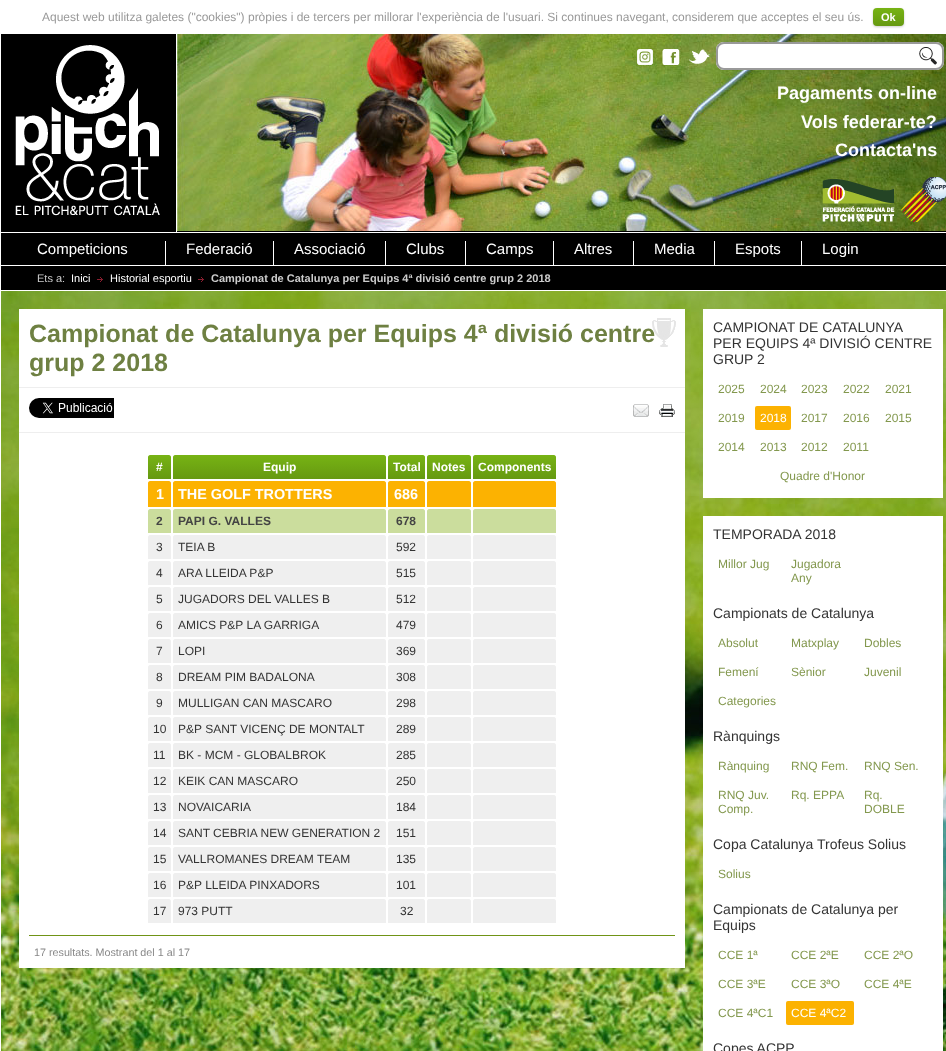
<svg xmlns="http://www.w3.org/2000/svg" width="946" height="1051">
<style>
.a{font:12px Liberation Sans;fill:#999}
.b{font:bold 11px Liberation Sans;fill:#fff}
.c{font:bold 18px Liberation Sans;fill:#fff}
.d{font:15px Liberation Sans;fill:#fff}
.e{font:11px Liberation Sans;fill:#ccc}
.f{font:11px Liberation Sans;fill:#fff}
.g{font:bold 11px Liberation Sans;fill:#ccc}
.h{font:bold 25px Liberation Sans;fill:#6e8042}
.i{font:bold 12px Liberation Sans;fill:#fff}
.j{font:bold 14.4px Liberation Sans;fill:#fff}
.k{font:bold 12px Liberation Sans;fill:#444}
.l{font:12px Liberation Sans;fill:#333}
.m{font:10.75px Liberation Sans;fill:#888}
.n{font:14px Liberation Sans;fill:#333}
.o{font:12px Liberation Sans;fill:#83984e}
.p{font:12px Liberation Sans;fill:#fff}
</style>
<defs>
<linearGradient id="g1" gradientUnits="userSpaceOnUse" x1="889" y1="8" x2="889" y2="26"><stop offset="0" stop-color="#77b314"/><stop offset="1" stop-color="#691"/></linearGradient>
<linearGradient id="g2" gradientUnits="userSpaceOnUse" x1="160" y1="455" x2="160" y2="479"><stop offset="0" stop-color="#77b314"/><stop offset="1" stop-color="#691"/></linearGradient>
<linearGradient id="g3" gradientUnits="userSpaceOnUse" x1="280" y1="455" x2="280" y2="479"><stop offset="0" stop-color="#77b314"/><stop offset="1" stop-color="#691"/></linearGradient>
<linearGradient id="g4" gradientUnits="userSpaceOnUse" x1="407" y1="455" x2="407" y2="479"><stop offset="0" stop-color="#77b314"/><stop offset="1" stop-color="#691"/></linearGradient>
<linearGradient id="g5" gradientUnits="userSpaceOnUse" x1="449" y1="455" x2="449" y2="479"><stop offset="0" stop-color="#77b314"/><stop offset="1" stop-color="#691"/></linearGradient>
<linearGradient id="g6" gradientUnits="userSpaceOnUse" x1="515" y1="455" x2="515" y2="479"><stop offset="0" stop-color="#77b314"/><stop offset="1" stop-color="#691"/></linearGradient>
</defs>
<rect width="100%" height="100%" fill="#fff"/>
<image href="1.png" x="1" y="291" width="945" height="760"/>
<rect fill="#ccc" filter="blur(1px)" x="873" y="9" width="31" height="18" rx="4"/>
<rect fill="url(#g1)" x="873" y="8" width="31" height="18" rx="4"/>
<path fill="#000" d="M1 34h945v198H1z"/>
<image href="2.png" x="177" y="34" width="769" height="197"/>
<image href="3.png" x="15" y="45" width="145" height="171"/>
<path fill="#fff" d="M176 34h1v198H176z"/>
<image href="4.png" x="637" y="49" width="16" height="16"/>
<image href="5.png" x="662" y="49" width="18" height="16"/>
<image href="6.png" x="689" y="49" width="21" height="15"/>
<rect fill="#fff" x="716" y="42" width="228" height="28" rx="8"/>
<image href="7.png" x="919" y="47" width="18" height="18"/>
<rect fill="none" stroke="#999" stroke-width="2" x="717" y="43" width="226" height="26" rx="7"/>
<image href="8.png" x="822" y="177" width="124" height="45"/>
<path fill="#000" d="M1 233h945v32H1z"/>
<path fill="#fff" d="M165 241h1v24H165z"/>
<path fill="#fff" d="M273 241h1v24H273z"/>
<path fill="#fff" d="M385 241h1v24H385z"/>
<path fill="#fff" d="M465 241h1v24H465z"/>
<path fill="#fff" d="M553 241h1v24H553z"/>
<path fill="#fff" d="M633 241h1v24H633z"/>
<path fill="#fff" d="M714 241h1v24H714z"/>
<path fill="#fff" d="M801 241h1v24H801z"/>
<path fill="#000" d="M1 266h945v24H1z"/>
<image href="9.png" x="97" y="277" width="6" height="5"/>
<image href="9.png" x="198" y="277" width="6" height="5"/>
<path fill="#fff" d="M19 309h666v78H19z"/>
<image href="10.png" x="652" y="318" width="24" height="29"/>
<path fill="#fff" d="M19 388h666v44H19z"/>
<path fill="#eee" d="M19 387h666v1H19z"/>
<path fill="#eee" d="M19 432h666v1H19z"/>
<image href="11.png" x="29" y="398" width="85" height="20"/>
<image href="12.png" x="633" y="404" width="16" height="13"/>
<image href="13.png" x="659" y="404" width="16" height="13"/>
<path fill="#fff" d="M19 433h666v535H19z"/>
<path fill="url(#g2)" d="M150 455h19c1 0 2 1 2 2v22h-23v-22c0-1 1-2 2-2z"/>
<path fill="url(#g3)" d="M175 455h209c1 0 2 1 2 2v22h-213v-22c0-1 1-2 2-2z"/>
<path fill="url(#g4)" d="M390 455h33c1 0 2 1 2 2v22h-37v-22c0-1 1-2 2-2z"/>
<path fill="url(#g5)" d="M429 455h40c1 0 2 1 2 2v22h-44v-22c0-1 1-2 2-2z"/>
<path fill="url(#g6)" d="M475 455h79c1 0 2 1 2 2v22h-83v-22c0-1 1-2 2-2z"/>
<path fill="#fcb201" d="M150 481h19c1 0 2 1 2 2v24h-23v-24c0-1 1-2 2-2z"/>
<path fill="#fcb201" d="M175 481h209c1 0 2 1 2 2v24h-213v-24c0-1 1-2 2-2z"/>
<path fill="#fcb201" d="M390 481h33c1 0 2 1 2 2v24h-37v-24c0-1 1-2 2-2z"/>
<path fill="#fcb201" d="M429 481h40c1 0 2 1 2 2v24h-44v-24c0-1 1-2 2-2z"/>
<path fill="#fcb201" d="M475 481h79c1 0 2 1 2 2v24h-83v-24c0-1 1-2 2-2z"/>
<path fill="#cbdd9d" d="M150 509h19c1 0 2 1 2 2v22h-23v-22c0-1 1-2 2-2z"/>
<path fill="#cbdd9d" d="M175 509h209c1 0 2 1 2 2v22h-213v-22c0-1 1-2 2-2z"/>
<path fill="#cbdd9d" d="M390 509h33c1 0 2 1 2 2v22h-37v-22c0-1 1-2 2-2z"/>
<path fill="#cbdd9d" d="M429 509h40c1 0 2 1 2 2v22h-44v-22c0-1 1-2 2-2z"/>
<path fill="#cbdd9d" d="M475 509h79c1 0 2 1 2 2v22h-83v-22c0-1 1-2 2-2z"/>
<path fill="#efefef" d="M150 535h19c1 0 2 1 2 2v22h-23v-22c0-1 1-2 2-2z"/>
<path fill="#efefef" d="M175 535h209c1 0 2 1 2 2v22h-213v-22c0-1 1-2 2-2z"/>
<path fill="#efefef" d="M390 535h33c1 0 2 1 2 2v22h-37v-22c0-1 1-2 2-2z"/>
<path fill="#efefef" d="M429 535h40c1 0 2 1 2 2v22h-44v-22c0-1 1-2 2-2z"/>
<path fill="#efefef" d="M475 535h79c1 0 2 1 2 2v22h-83v-22c0-1 1-2 2-2z"/>
<path fill="#efefef" d="M150 561h19c1 0 2 1 2 2v22h-23v-22c0-1 1-2 2-2z"/>
<path fill="#efefef" d="M175 561h209c1 0 2 1 2 2v22h-213v-22c0-1 1-2 2-2z"/>
<path fill="#efefef" d="M390 561h33c1 0 2 1 2 2v22h-37v-22c0-1 1-2 2-2z"/>
<path fill="#efefef" d="M429 561h40c1 0 2 1 2 2v22h-44v-22c0-1 1-2 2-2z"/>
<path fill="#efefef" d="M475 561h79c1 0 2 1 2 2v22h-83v-22c0-1 1-2 2-2z"/>
<path fill="#efefef" d="M150 587h19c1 0 2 1 2 2v22h-23v-22c0-1 1-2 2-2z"/>
<path fill="#efefef" d="M175 587h209c1 0 2 1 2 2v22h-213v-22c0-1 1-2 2-2z"/>
<path fill="#efefef" d="M390 587h33c1 0 2 1 2 2v22h-37v-22c0-1 1-2 2-2z"/>
<path fill="#efefef" d="M429 587h40c1 0 2 1 2 2v22h-44v-22c0-1 1-2 2-2z"/>
<path fill="#efefef" d="M475 587h79c1 0 2 1 2 2v22h-83v-22c0-1 1-2 2-2z"/>
<path fill="#efefef" d="M150 613h19c1 0 2 1 2 2v22h-23v-22c0-1 1-2 2-2z"/>
<path fill="#efefef" d="M175 613h209c1 0 2 1 2 2v22h-213v-22c0-1 1-2 2-2z"/>
<path fill="#efefef" d="M390 613h33c1 0 2 1 2 2v22h-37v-22c0-1 1-2 2-2z"/>
<path fill="#efefef" d="M429 613h40c1 0 2 1 2 2v22h-44v-22c0-1 1-2 2-2z"/>
<path fill="#efefef" d="M475 613h79c1 0 2 1 2 2v22h-83v-22c0-1 1-2 2-2z"/>
<path fill="#efefef" d="M150 639h19c1 0 2 1 2 2v22h-23v-22c0-1 1-2 2-2z"/>
<path fill="#efefef" d="M175 639h209c1 0 2 1 2 2v22h-213v-22c0-1 1-2 2-2z"/>
<path fill="#efefef" d="M390 639h33c1 0 2 1 2 2v22h-37v-22c0-1 1-2 2-2z"/>
<path fill="#efefef" d="M429 639h40c1 0 2 1 2 2v22h-44v-22c0-1 1-2 2-2z"/>
<path fill="#efefef" d="M475 639h79c1 0 2 1 2 2v22h-83v-22c0-1 1-2 2-2z"/>
<path fill="#efefef" d="M150 665h19c1 0 2 1 2 2v22h-23v-22c0-1 1-2 2-2z"/>
<path fill="#efefef" d="M175 665h209c1 0 2 1 2 2v22h-213v-22c0-1 1-2 2-2z"/>
<path fill="#efefef" d="M390 665h33c1 0 2 1 2 2v22h-37v-22c0-1 1-2 2-2z"/>
<path fill="#efefef" d="M429 665h40c1 0 2 1 2 2v22h-44v-22c0-1 1-2 2-2z"/>
<path fill="#efefef" d="M475 665h79c1 0 2 1 2 2v22h-83v-22c0-1 1-2 2-2z"/>
<path fill="#efefef" d="M150 691h19c1 0 2 1 2 2v22h-23v-22c0-1 1-2 2-2z"/>
<path fill="#efefef" d="M175 691h209c1 0 2 1 2 2v22h-213v-22c0-1 1-2 2-2z"/>
<path fill="#efefef" d="M390 691h33c1 0 2 1 2 2v22h-37v-22c0-1 1-2 2-2z"/>
<path fill="#efefef" d="M429 691h40c1 0 2 1 2 2v22h-44v-22c0-1 1-2 2-2z"/>
<path fill="#efefef" d="M475 691h79c1 0 2 1 2 2v22h-83v-22c0-1 1-2 2-2z"/>
<path fill="#efefef" d="M150 717h19c1 0 2 1 2 2v22h-23v-22c0-1 1-2 2-2z"/>
<path fill="#efefef" d="M175 717h209c1 0 2 1 2 2v22h-213v-22c0-1 1-2 2-2z"/>
<path fill="#efefef" d="M390 717h33c1 0 2 1 2 2v22h-37v-22c0-1 1-2 2-2z"/>
<path fill="#efefef" d="M429 717h40c1 0 2 1 2 2v22h-44v-22c0-1 1-2 2-2z"/>
<path fill="#efefef" d="M475 717h79c1 0 2 1 2 2v22h-83v-22c0-1 1-2 2-2z"/>
<path fill="#efefef" d="M150 743h19c1 0 2 1 2 2v22h-23v-22c0-1 1-2 2-2z"/>
<path fill="#efefef" d="M175 743h209c1 0 2 1 2 2v22h-213v-22c0-1 1-2 2-2z"/>
<path fill="#efefef" d="M390 743h33c1 0 2 1 2 2v22h-37v-22c0-1 1-2 2-2z"/>
<path fill="#efefef" d="M429 743h40c1 0 2 1 2 2v22h-44v-22c0-1 1-2 2-2z"/>
<path fill="#efefef" d="M475 743h79c1 0 2 1 2 2v22h-83v-22c0-1 1-2 2-2z"/>
<path fill="#efefef" d="M150 769h19c1 0 2 1 2 2v22h-23v-22c0-1 1-2 2-2z"/>
<path fill="#efefef" d="M175 769h209c1 0 2 1 2 2v22h-213v-22c0-1 1-2 2-2z"/>
<path fill="#efefef" d="M390 769h33c1 0 2 1 2 2v22h-37v-22c0-1 1-2 2-2z"/>
<path fill="#efefef" d="M429 769h40c1 0 2 1 2 2v22h-44v-22c0-1 1-2 2-2z"/>
<path fill="#efefef" d="M475 769h79c1 0 2 1 2 2v22h-83v-22c0-1 1-2 2-2z"/>
<path fill="#efefef" d="M150 795h19c1 0 2 1 2 2v22h-23v-22c0-1 1-2 2-2z"/>
<path fill="#efefef" d="M175 795h209c1 0 2 1 2 2v22h-213v-22c0-1 1-2 2-2z"/>
<path fill="#efefef" d="M390 795h33c1 0 2 1 2 2v22h-37v-22c0-1 1-2 2-2z"/>
<path fill="#efefef" d="M429 795h40c1 0 2 1 2 2v22h-44v-22c0-1 1-2 2-2z"/>
<path fill="#efefef" d="M475 795h79c1 0 2 1 2 2v22h-83v-22c0-1 1-2 2-2z"/>
<path fill="#efefef" d="M150 821h19c1 0 2 1 2 2v22h-23v-22c0-1 1-2 2-2z"/>
<path fill="#efefef" d="M175 821h209c1 0 2 1 2 2v22h-213v-22c0-1 1-2 2-2z"/>
<path fill="#efefef" d="M390 821h33c1 0 2 1 2 2v22h-37v-22c0-1 1-2 2-2z"/>
<path fill="#efefef" d="M429 821h40c1 0 2 1 2 2v22h-44v-22c0-1 1-2 2-2z"/>
<path fill="#efefef" d="M475 821h79c1 0 2 1 2 2v22h-83v-22c0-1 1-2 2-2z"/>
<path fill="#efefef" d="M150 847h19c1 0 2 1 2 2v22h-23v-22c0-1 1-2 2-2z"/>
<path fill="#efefef" d="M175 847h209c1 0 2 1 2 2v22h-213v-22c0-1 1-2 2-2z"/>
<path fill="#efefef" d="M390 847h33c1 0 2 1 2 2v22h-37v-22c0-1 1-2 2-2z"/>
<path fill="#efefef" d="M429 847h40c1 0 2 1 2 2v22h-44v-22c0-1 1-2 2-2z"/>
<path fill="#efefef" d="M475 847h79c1 0 2 1 2 2v22h-83v-22c0-1 1-2 2-2z"/>
<path fill="#efefef" d="M150 873h19c1 0 2 1 2 2v22h-23v-22c0-1 1-2 2-2z"/>
<path fill="#efefef" d="M175 873h209c1 0 2 1 2 2v22h-213v-22c0-1 1-2 2-2z"/>
<path fill="#efefef" d="M390 873h33c1 0 2 1 2 2v22h-37v-22c0-1 1-2 2-2z"/>
<path fill="#efefef" d="M429 873h40c1 0 2 1 2 2v22h-44v-22c0-1 1-2 2-2z"/>
<path fill="#efefef" d="M475 873h79c1 0 2 1 2 2v22h-83v-22c0-1 1-2 2-2z"/>
<path fill="#efefef" d="M150 899h19c1 0 2 1 2 2v22h-23v-22c0-1 1-2 2-2z"/>
<path fill="#efefef" d="M175 899h209c1 0 2 1 2 2v22h-213v-22c0-1 1-2 2-2z"/>
<path fill="#efefef" d="M390 899h33c1 0 2 1 2 2v22h-37v-22c0-1 1-2 2-2z"/>
<path fill="#efefef" d="M429 899h40c1 0 2 1 2 2v22h-44v-22c0-1 1-2 2-2z"/>
<path fill="#efefef" d="M475 899h79c1 0 2 1 2 2v22h-83v-22c0-1 1-2 2-2z"/>
<path fill="#709416" d="M29 935h646v1H29z"/>
<path fill="#fff" d="M703 309h240v189H703z"/>
<rect fill="#fcb201" x="755" y="406" width="36" height="24" rx="2"/>
<path fill="#fff" d="M703 516h240v535H703z"/>
<rect fill="#fcb201" x="786" y="1001" width="68" height="24" rx="2"/>
<text class="a" x="42" y="21">Aquest web utilitza galetes ("cookies") pròpies i de tercers per millorar l'experiència de l'usuari. Si continues navegant, considerem que acceptes el seu ús.</text>
<text class="b" x="881" y="21">Ok</text>
<text class="c" x="777" y="99">Pagaments on-line</text>
<text class="c" x="801" y="128">Vols federar-te?</text>
<text class="c" x="835" y="156">Contacta'ns</text>
<text class="d" x="37" y="254">Competicions</text>
<text class="d" x="186" y="254">Federació</text>
<text class="d" x="294" y="254">Associació</text>
<text class="d" x="406" y="254">Clubs</text>
<text class="d" x="486" y="254">Camps</text>
<text class="d" x="574" y="254">Altres</text>
<text class="d" x="654" y="254">Media</text>
<text class="d" x="735" y="254">Espots</text>
<text class="d" x="822" y="254">Login</text>
<text class="e" x="37" y="282">Ets a:</text>
<text class="f" x="71" y="282">Inici</text>
<text class="f" x="110" y="282">Historial esportiu</text>
<text class="g" x="211" y="282">Campionat de Catalunya per Equips 4ª divisió centre grup 2 2018</text>
<text class="h" x="29" y="342">Campionat de Catalunya per Equips 4ª divisió centre</text>
<text class="h" x="29" y="371">grup 2 2018</text>
<text class="i" x="156" y="471">#</text>
<text class="i" x="263" y="471">Equip</text>
<text class="i" x="393" y="471">Total</text>
<text class="i" x="432" y="471">Notes</text>
<text class="i" x="478" y="471">Components</text>
<text class="j" x="156" y="499">1</text>
<text class="j" x="178" y="499">THE GOLF TROTTERS</text>
<text class="j" x="394" y="499">686</text>
<text class="k" x="156" y="525">2</text>
<text class="k" x="178" y="525">PAPI G. VALLES</text>
<text class="k" x="396" y="525">678</text>
<text class="l" x="156" y="551">3</text>
<text class="l" x="178" y="551">TEIA B</text>
<text class="l" x="396" y="551">592</text>
<text class="l" x="156" y="577">4</text>
<text class="l" x="178" y="577">ARA LLEIDA P&amp;P</text>
<text class="l" x="396" y="577">515</text>
<text class="l" x="156" y="603">5</text>
<text class="l" x="178" y="603">JUGADORS DEL VALLES B</text>
<text class="l" x="396" y="603">512</text>
<text class="l" x="156" y="629">6</text>
<text class="l" x="178" y="629">AMICS P&amp;P LA GARRIGA</text>
<text class="l" x="396" y="629">479</text>
<text class="l" x="156" y="655">7</text>
<text class="l" x="178" y="655">LOPI</text>
<text class="l" x="396" y="655">369</text>
<text class="l" x="156" y="681">8</text>
<text class="l" x="178" y="681">DREAM PIM BADALONA</text>
<text class="l" x="396" y="681">308</text>
<text class="l" x="156" y="707">9</text>
<text class="l" x="178" y="707">MULLIGAN CAN MASCARO</text>
<text class="l" x="396" y="707">298</text>
<text class="l" x="153" y="733">10</text>
<text class="l" x="178" y="733">P&amp;P SANT VICENÇ DE MONTALT</text>
<text class="l" x="396" y="733">289</text>
<text class="l" x="153" y="759">11</text>
<text class="l" x="178" y="759">BK - MCM - GLOBALBROK</text>
<text class="l" x="396" y="759">285</text>
<text class="l" x="153" y="785">12</text>
<text class="l" x="178" y="785">KEIK CAN MASCARO</text>
<text class="l" x="396" y="785">250</text>
<text class="l" x="153" y="811">13</text>
<text class="l" x="178" y="811">NOVAICARIA</text>
<text class="l" x="396" y="811">184</text>
<text class="l" x="153" y="837">14</text>
<text class="l" x="178" y="837">SANT CEBRIA NEW GENERATION 2</text>
<text class="l" x="396" y="837">151</text>
<text class="l" x="153" y="863">15</text>
<text class="l" x="178" y="863">VALLROMANES DREAM TEAM</text>
<text class="l" x="396" y="863">135</text>
<text class="l" x="153" y="889">16</text>
<text class="l" x="178" y="889">P&amp;P LLEIDA PINXADORS</text>
<text class="l" x="396" y="889">101</text>
<text class="l" x="153" y="915">17</text>
<text class="l" x="178" y="915">973 PUTT</text>
<text class="l" x="400" y="915">32</text>
<text class="m" x="34" y="956">17 resultats. Mostrant del 1 al 17</text>
<text class="n" x="713" y="332">CAMPIONAT DE CATALUNYA</text>
<text class="n" x="713" y="348">PER EQUIPS 4ª DIVISIÓ CENTRE</text>
<text class="n" x="713" y="364">GRUP 2</text>
<text class="o" x="718" y="393">2025</text>
<text class="o" x="760" y="393">2024</text>
<text class="o" x="801" y="393">2023</text>
<text class="o" x="843" y="393">2022</text>
<text class="o" x="885" y="393">2021</text>
<text class="o" x="718" y="422">2019</text>
<text class="p" x="760" y="422">2018</text>
<text class="o" x="801" y="422">2017</text>
<text class="o" x="843" y="422">2016</text>
<text class="o" x="885" y="422">2015</text>
<text class="o" x="718" y="451">2014</text>
<text class="o" x="760" y="451">2013</text>
<text class="o" x="801" y="451">2012</text>
<text class="o" x="843" y="451">2011</text>
<text class="o" x="780" y="480">Quadre d'Honor</text>
<text class="n" x="713" y="539">TEMPORADA 2018</text>
<text class="o" x="718" y="568">Millor Jug</text>
<text class="o" x="791" y="568">Jugadora</text>
<text class="o" x="791" y="582">Any</text>
<text class="n" x="713" y="618">Campionats de Catalunya</text>
<text class="o" x="718" y="647">Absolut</text>
<text class="o" x="791" y="647">Matxplay</text>
<text class="o" x="864" y="647">Dobles</text>
<text class="o" x="718" y="676">Femení</text>
<text class="o" x="791" y="676">Sènior</text>
<text class="o" x="864" y="676">Juvenil</text>
<text class="o" x="718" y="705">Categories</text>
<text class="n" x="713" y="741">Rànquings</text>
<text class="o" x="718" y="770">Rànquing</text>
<text class="o" x="791" y="770">RNQ Fem.</text>
<text class="o" x="864" y="770">RNQ Sen.</text>
<text class="o" x="718" y="799">RNQ Juv.</text>
<text class="o" x="718" y="813">Comp.</text>
<text class="o" x="791" y="799">Rq. EPPA</text>
<text class="o" x="864" y="799">Rq.</text>
<text class="o" x="864" y="813">DOBLE</text>
<text class="n" x="713" y="849">Copa Catalunya Trofeus Solius</text>
<text class="o" x="718" y="878">Solius</text>
<text class="n" x="713" y="914">Campionats de Catalunya per</text>
<text class="n" x="713" y="930">Equips</text>
<text class="o" x="718" y="959">CCE 1ª</text>
<text class="o" x="791" y="959">CCE 2ªE</text>
<text class="o" x="864" y="959">CCE 2ªO</text>
<text class="o" x="718" y="988">CCE 3ªE</text>
<text class="o" x="791" y="988">CCE 3ªO</text>
<text class="o" x="864" y="988">CCE 4ªE</text>
<text class="o" x="718" y="1017">CCE 4ªC1</text>
<text class="p" x="791" y="1017">CCE 4ªC2</text>
<text class="n" x="713" y="1053">Copes ACPP</text>
</svg>
